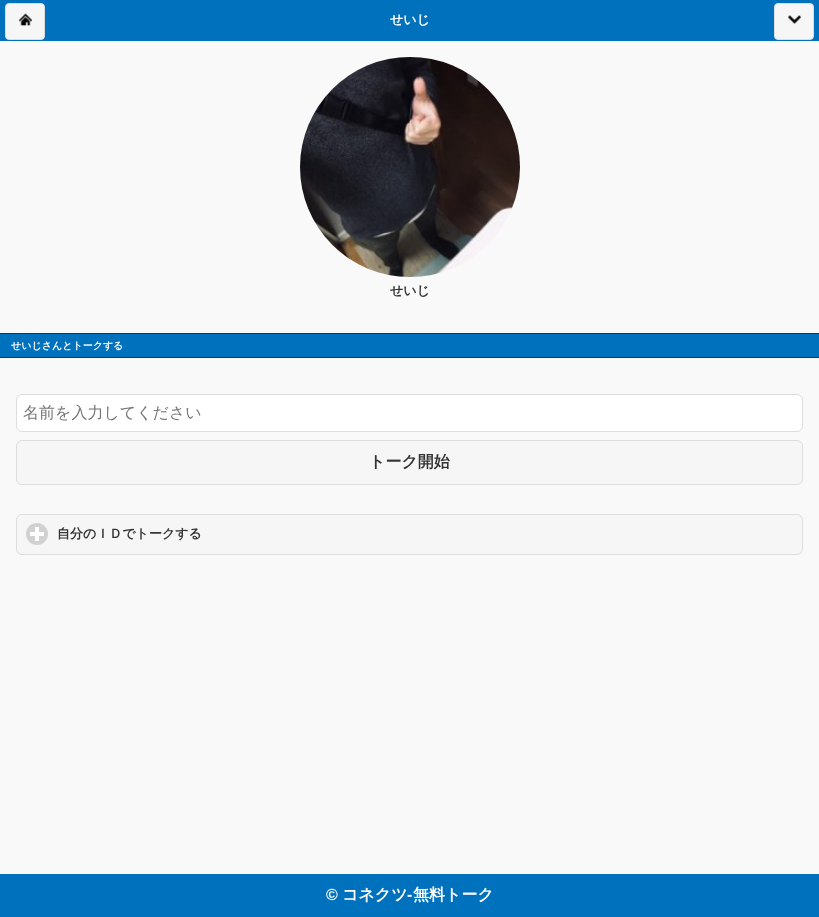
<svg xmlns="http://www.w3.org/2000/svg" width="819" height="917">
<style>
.a{font:bold 13px WenQuanYi Zen Hei;fill:#fff}
.b{font:bold 13px WenQuanYi Zen Hei;fill:#333}
.c{font:bold 10px WenQuanYi Zen Hei;fill:#fff}
.d{font:500 16px WenQuanYi Zen Hei;fill:#757575}
.e{font:bold 16px WenQuanYi Zen Hei;fill:#333}
.f{font:bold 16px Liberation Sans;fill:#fff}
.g{font:bold 16px WenQuanYi Zen Hei;fill:#fff}
</style>
<rect width="100%" height="100%" fill="#f9f9f9"/>
<path fill="#0071bc" d="M0 0h819v41H0z"/>
<rect fill="#f6f6f6" stroke="#ddd" x="5.5" y="3.5" width="39" height="36" rx="3.5"/>
<image href="1.png" x="18" y="13" width="14" height="13"/>
<rect fill="#f6f6f6" stroke="#ddd" x="774.5" y="3.5" width="39" height="36" rx="3.5"/>
<image href="2.png" x="788" y="15" width="13" height="9"/>
<image href="3.png" x="300" y="57" width="220" height="220"/>
<path fill="#0071bc" d="M0 334h819v23H0z"/>
<path fill="#003e67" d="M0 333h819v1H0z"/>
<path fill="#003e67" d="M0 357h819v1H0z"/>
<rect fill="#fff" stroke="#ddd" x="16.5" y="394.5" width="786" height="37" rx="5.5"/>
<rect fill="#f6f6f6" stroke="#ddd" x="16.5" y="440.5" width="786" height="44" rx="5.5"/>
<rect fill="#f6f6f6" stroke="#ddd" x="16.5" y="514.5" width="786" height="40" rx="5.5"/>
<circle fill="#d1d1d1" cx="37" cy="534" r="11"/>
<image href="4.png" x="30" y="527" width="14" height="14"/>
<path fill="#0071bc" d="M0 874h819v43H0z"/>
<text class="a" x="390" y="24">せいじ</text>
<text class="b" x="390" y="295">せいじ</text>
<text class="c" x="11" y="349">せいじさんとトークする</text>
<text class="d" x="23" y="418">名前を入力してください</text>
<text class="e" x="369" y="467">トーク開始</text>
<text class="b" x="57" y="538">自分のＩＤでトークする</text>
<text class="f" x="326" y="900">©</text>
<text class="g" x="342" y="900">コネクツ</text>
<text class="f" x="407" y="900">-</text>
<text class="g" x="413" y="900">無料トーク</text>
</svg>
